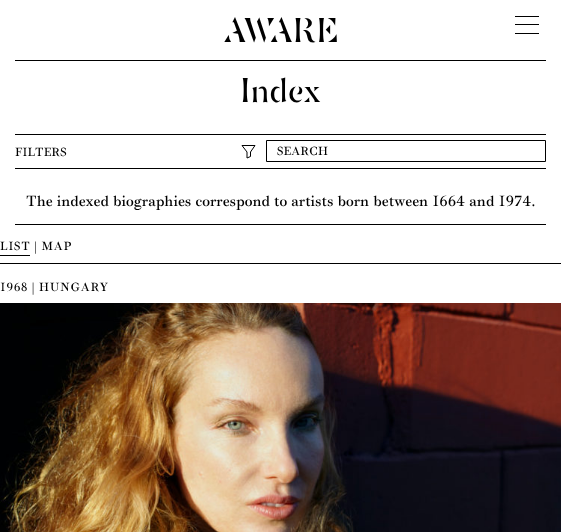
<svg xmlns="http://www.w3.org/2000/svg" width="561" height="532">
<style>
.a{font:200 35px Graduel;fill:#000}
.b{font:12px Graduel;fill:#000}
.c{font:15px Graduel;fill:#000}
.d{font:12px Graduel;letter-spacing:0.6px;fill:#000}
</style>
<rect width="100%" height="100%" fill="#fff"/>
<path fill="#000" d="M15 60h531v1H15z"/>
<path fill="#000" d="M515 16h24v1H515z"/>
<path fill="#000" d="M515 33h24v1H515z"/>
<path fill="#000" d="M515 24h24v1H515z"/>
<path fill="#000" d="M15 134h531v1H15z"/>
<path fill="#000" d="M15 168h531v1H15z"/>
<path fill="none" stroke="#000" d="M255 145.5h-13l5 6.5v6l3.5-1.5v-4.5z"/>
<path fill="none" stroke="#000" d="M266.5 140.5h279v21H266.5z"/>
<path fill="#000" d="M15 224h531v1H15z"/>
<path fill="#000" d="M0 263h561v1H0z"/>
<path fill="#000" d="M0 255h30v1H0z"/>
<image href="1.png" x="0" y="303" width="561" height="229"/>
<text class="a" x="223" y="42">AWARE</text>
<text class="a" x="240" y="102">Index</text>
<text class="b" x="15" y="156">FILTERS</text>
<text class="b" x="277" y="155">SEARCH</text>
<text class="c" x="26" y="206">The indexed biographies correspond to artists born between 1664 and 1974.</text>
<text class="d" x="0" y="250">LIST | MAP</text>
<text class="d" x="0" y="291">1968 | HUNGARY</text>
</svg>
